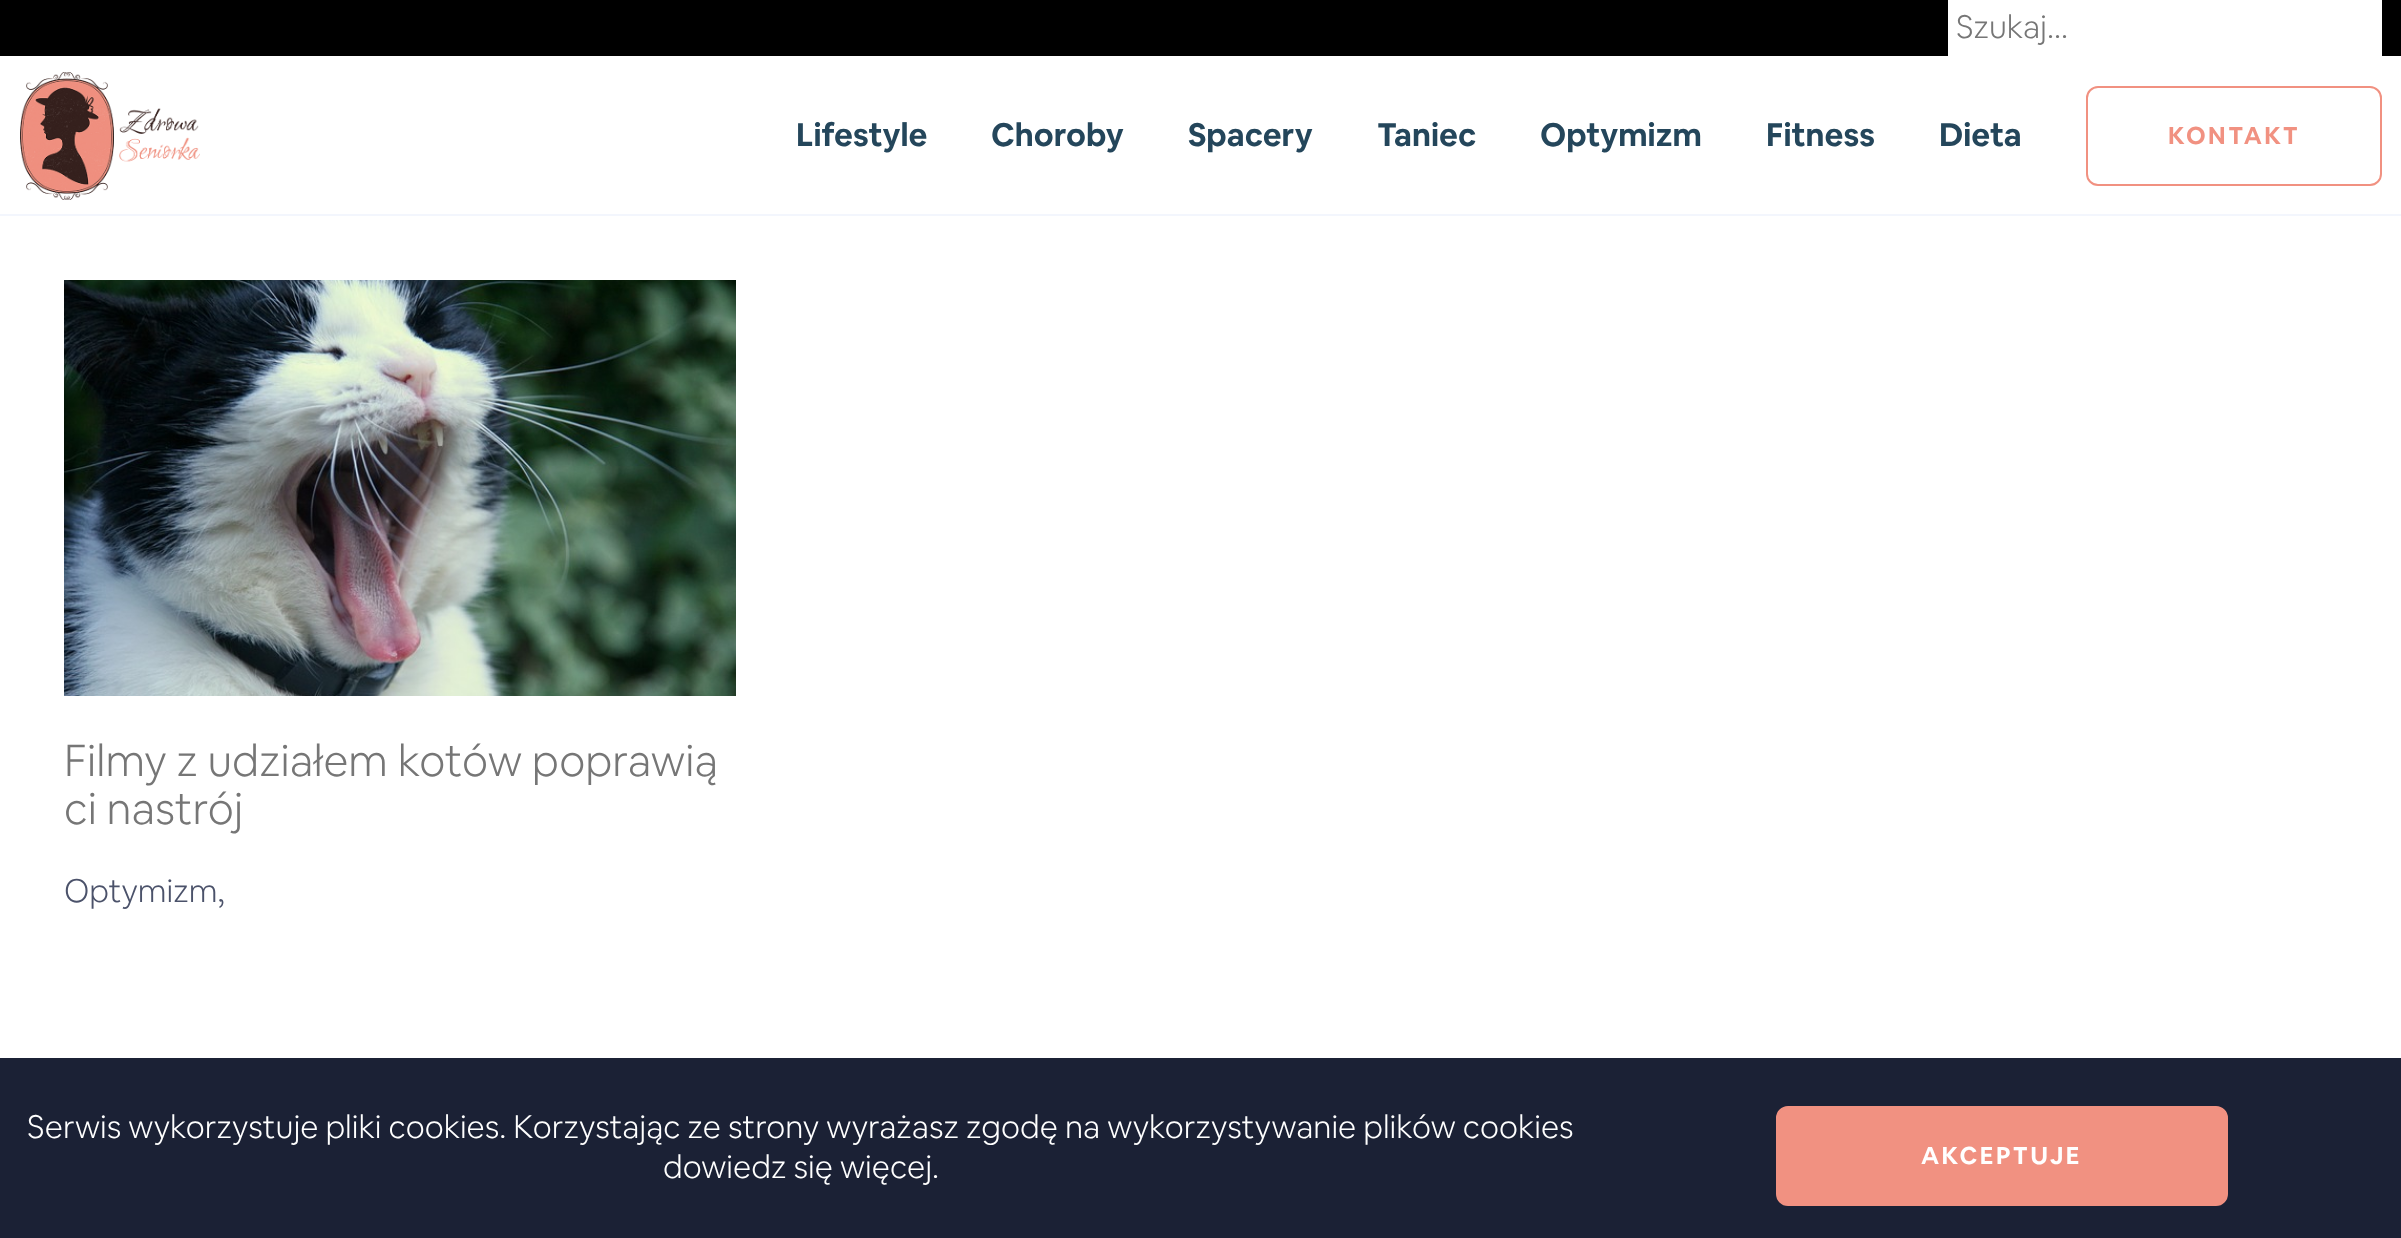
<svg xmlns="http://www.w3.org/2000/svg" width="2401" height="1238">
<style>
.a{font:300 32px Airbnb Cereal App;fill:#767676}
.b{font:bold 32px Airbnb Cereal App;fill:#24465b}
.c{font:bold 24px Airbnb Cereal App;letter-spacing:2.5px;fill:#f19181}
.d{font:300 44px Airbnb Cereal App;fill:#767676}
.e{font:300 32px Airbnb Cereal App;fill:#4b526a}
.f{font:300 32px Airbnb Cereal App;fill:#fff}
.g{font:bold 24px Airbnb Cereal App;letter-spacing:2.5px;fill:#fff}
</style>
<rect width="100%" height="100%" fill="#fff"/>
<path fill="#f3f6fd" d="M0 214h2401v2H0z"/>
<path fill="#000" d="M0 0h2401v56H0z"/>
<path fill="#fff" d="M1948 0h434v56H1948z"/>
<image href="1.png" x="20" y="72" width="180" height="128"/>
<rect fill="none" stroke="#f19181" stroke-width="2" x="2087" y="87" width="294" height="98" rx="11"/>
<image href="2.png" x="64" y="280" width="672" height="416"/>
<path fill="#1b2135" d="M0 1058h2401v180H0z"/>
<rect fill="#f19181" stroke="#f19181" stroke-width="2" x="1777" y="1107" width="450" height="98" rx="11"/>
<text class="a" x="1956" y="38">Szukaj...</text>
<text class="b" x="796" y="146">Lifestyle</text>
<text class="b" x="991" y="146">Choroby</text>
<text class="b" x="1188" y="146">Spacery</text>
<text class="b" x="1377" y="146">Taniec</text>
<text class="b" x="1540" y="146">Optymizm</text>
<text class="b" x="1766" y="146">Fitness</text>
<text class="b" x="1939" y="146">Dieta</text>
<text class="c" x="2168" y="144">KONTAKT</text>
<text class="d" x="64" y="776">Filmy z udziałem kotów poprawią</text>
<text class="d" x="64" y="824">ci nastrój</text>
<text class="e" x="64" y="902">Optymizm,</text>
<text class="f" x="27" y="1138">Serwis wykorzystuje pliki cookies. Korzystając ze strony wyrażasz zgodę na wykorzystywanie plików cookies</text>
<text class="f" x="663" y="1178">dowiedz się więcej.</text>
<text class="g" x="1921" y="1164">AKCEPTUJE</text>
</svg>
